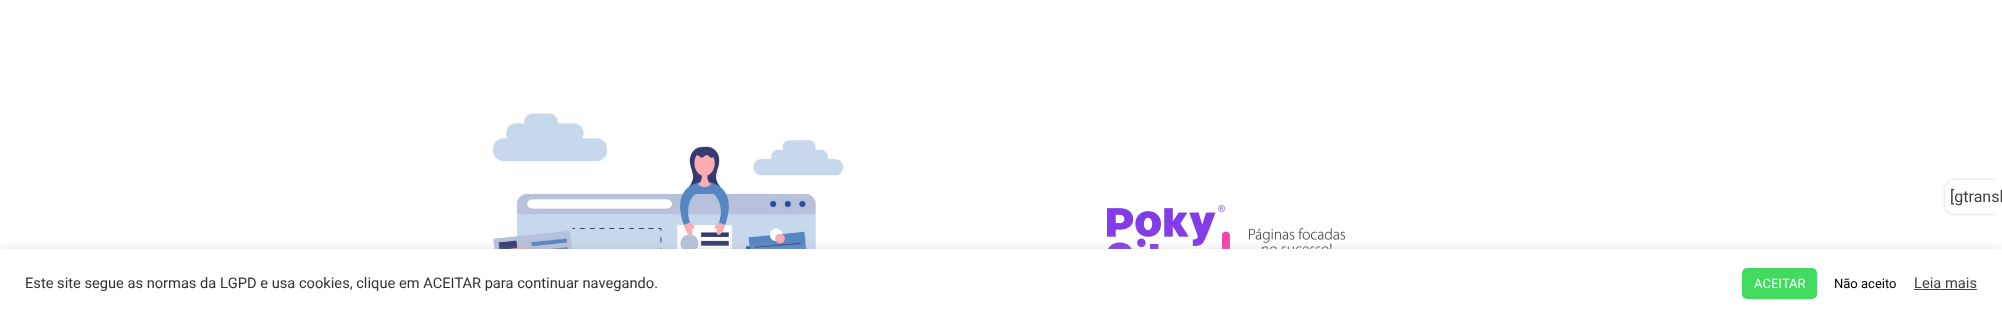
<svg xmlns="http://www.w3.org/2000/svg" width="2002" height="318">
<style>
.a{font:16px Heebo;fill:#404040}
.b{font:14.65px Heebo;fill:#333}
.c{font:13px Heebo;fill:#fff}
.d{font:13px Heebo;fill:#000}
.e{font:14.65px Heebo;fill:#404040}
</style>
<rect width="100%" height="100%" fill="#fff"/>
<image href="1.png" x="489" y="113" width="355" height="136"/>
<image href="2.png" x="1107" y="205" width="238" height="44"/>
<rect fill="#00000038" filter="blur(1.5px)" x="1945" y="180" width="57" height="34" rx="10"/>
<path fill="#fff" d="M1955 180h47v34h-47c-5.5 0-10-4.5-10-10v-14c0-5.5 4.5-10 10-10z"/>
<path fill="#acabab4d" filter="blur(5px)" d="M0 248h2002v69H0z"/>
<path fill="#fff" d="M0 249h2002v69H0z"/>
<rect fill="#43db5f" x="1742" y="268" width="75" height="31" rx="5"/>
<path fill="#444" d="M1914 289h63v1H1914z"/>
<text class="a" x="1950" y="202">[gtransl</text>
<text class="b" x="25" y="288">Este site segue as normas da LGPD e usa cookies, clique em ACEITAR para continuar navegando.</text>
<text class="c" x="1754" y="288">ACEITAR</text>
<text class="d" x="1834" y="288">Não aceito</text>
<text class="e" x="1914" y="288">Leia mais</text>
</svg>
